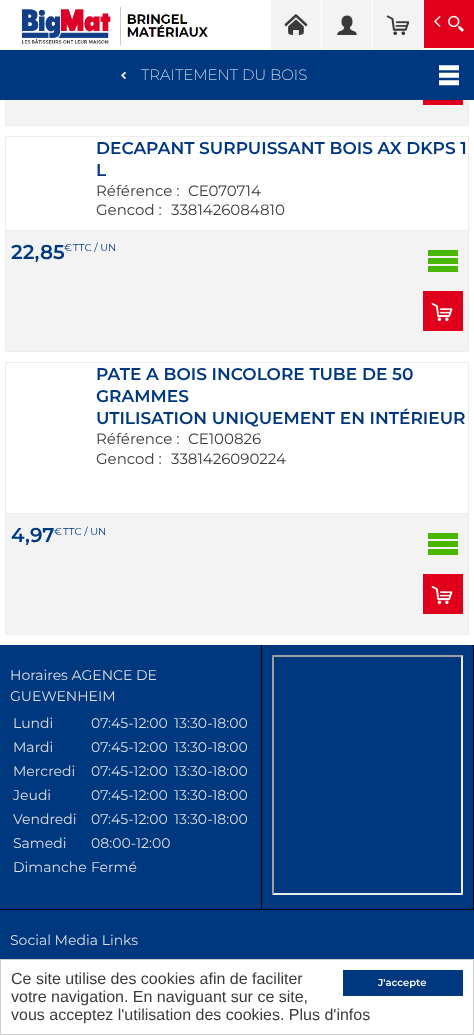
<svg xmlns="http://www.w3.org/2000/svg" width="474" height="1035">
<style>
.a{font:200 15px Montserrat;fill:#fff}
.b{font:600 17px Montserrat;fill:#003880}
.c{font:15px Montserrat;fill:#3b3b3b}
.d{font:600 20px Montserrat;fill:#003880}
.e{font:10px Montserrat;fill:#003880}
.f{font:14px Montserrat;fill:#dedede}
.g{font:16px Liberation Sans;fill:#3b3b3b}
.h{font:600 10px Montserrat;fill:#fff}
</style>
<rect width="100%" height="100%" fill="#fff"/>
<path fill="none" stroke="#ededed" d="M5.5 -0.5h463v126H5.5z"/>
<path fill="#fff" d="M5 0h464v50H5z"/>
<image href="1.png" x="21" y="6" width="187" height="39"/>
<path fill="#f3f3f3" d="M271 0h50v50H271z"/>
<image href="2.png" x="284" y="14" width="24" height="22"/>
<path fill="#f3f3f3" d="M322 0h50v50H322z"/>
<image href="3.png" x="337" y="15" width="20" height="20"/>
<path fill="#f3f3f3" d="M373 0h50v50H373z"/>
<image href="4.png" x="386" y="15" width="24" height="21"/>
<path fill="#e0001b" d="M424 0h50v48H424z"/>
<image href="5.png" x="434" y="15" width="30" height="17"/>
<path fill="#003880" d="M0 50h474v50H0z"/>
<image href="6.png" x="121" y="71" width="5" height="9"/>
<image href="7.png" x="439" y="65" width="20" height="21"/>
<path fill="#f3f3f3" d="M6 100h462v25H6z"/>
<path fill="#e0001b" d="M423 100h40v5H423z"/>
<path fill="none" stroke="#ededed" d="M5.5 136.5h463v215H5.5z"/>
<path fill="#f3f3f3" d="M6 231h462v120H6z"/>
<path fill="#ededed" d="M6 230h462v1H6z"/>
<path fill="#49b700" d="M428 250h30v6H428z"/>
<path fill="#49b700" d="M428 258h30v6H428z"/>
<path fill="#49b700" d="M428 266h30v6H428z"/>
<path fill="#e0001b" d="M423 291h40v40H423z"/>
<image href="8.png" x="431" y="303" width="22" height="19"/>
<path fill="none" stroke="#ededed" d="M5.5 362.5h463v272H5.5z"/>
<path fill="#f3f3f3" d="M6 514h462v120H6z"/>
<path fill="#ededed" d="M6 513h462v1H6z"/>
<path fill="#49b700" d="M428 533h30v6H428z"/>
<path fill="#49b700" d="M428 541h30v6H428z"/>
<path fill="#49b700" d="M428 549h30v6H428z"/>
<path fill="#e0001b" d="M423 574h40v40H423z"/>
<image href="8.png" x="431" y="586" width="22" height="19"/>
<path fill="#003880" d="M0 645h474v314H0z"/>
<path fill="#000" d="M261 645h1v265H261z"/>
<path fill="#000" d="M0 909h262v1H0z"/>
<path fill="#000" d="M473 645h1v265H473z"/>
<path fill="#000" d="M262 909h212v1H262z"/>
<path fill="#9f9f9f" d="M272 655h191l-2 2h-187z"/>
<path fill="#eee" d="M463 655v240l-2-2v-236z"/>
<path fill="#eee" d="M463 895h-191l2-2h187z"/>
<path fill="#9f9f9f" d="M272 895v-240l2 2v236z"/>
<path fill="none" stroke="#ccc" d="M0.5 959.5h473v75H0.5z"/>
<path fill="#003880" d="M343 970h120v26H343z"/>
<text class="a" x="141" y="80">TRAITEMENT DU BOIS</text>
<text class="b" x="96" y="154">DECAPANT SURPUISSANT BOIS AX DKPS 1</text>
<text class="b" x="96" y="176">L</text>
<text class="c" x="96" y="196">Référence :</text>
<text class="c" x="188" y="196">CE070714</text>
<text class="c" x="96" y="215">Gencod :</text>
<text class="c" x="171" y="215">3381426084810</text>
<text class="d" x="11" y="259">22,</text>
<text class="d" x="40" y="259">85</text>
<text class="e" x="64" y="251">€</text>
<text class="e" x="73" y="251">TTC / UN</text>
<text class="b" x="96" y="380">PATE A BOIS INCOLORE TUBE DE 50</text>
<text class="b" x="96" y="402">GRAMMES</text>
<text class="b" x="96" y="424">UTILISATION UNIQUEMENT EN INTÉRIEUR</text>
<text class="c" x="96" y="444">Référence :</text>
<text class="c" x="188" y="444">CE100826</text>
<text class="c" x="96" y="464">Gencod :</text>
<text class="c" x="171" y="464">3381426090224</text>
<text class="d" x="11" y="542">4</text>
<text class="d" x="25" y="542">,97</text>
<text class="e" x="54" y="535">€</text>
<text class="e" x="63" y="535">TTC / UN</text>
<text class="f" x="10" y="680">Horaires AGENCE DE</text>
<text class="f" x="10" y="701">GUEWENHEIM</text>
<text class="f" x="13" y="728">Lundi</text>
<text class="f" x="91" y="728">07:45-12:00</text>
<text class="f" x="174" y="728">13:30-18:00</text>
<text class="f" x="13" y="752">Mardi</text>
<text class="f" x="91" y="752">07:45-12:00</text>
<text class="f" x="174" y="752">13:30-18:00</text>
<text class="f" x="13" y="776">Mercredi</text>
<text class="f" x="91" y="776">07:45-12:00</text>
<text class="f" x="174" y="776">13:30-18:00</text>
<text class="f" x="13" y="800">Jeudi</text>
<text class="f" x="91" y="800">07:45-12:00</text>
<text class="f" x="174" y="800">13:30-18:00</text>
<text class="f" x="13" y="824">Vendredi</text>
<text class="f" x="91" y="824">07:45-12:00</text>
<text class="f" x="174" y="824">13:30-18:00</text>
<text class="f" x="13" y="848">Samedi</text>
<text class="f" x="91" y="848">08:00-12:00</text>
<text class="f" x="13" y="872">Dimanche</text>
<text class="f" x="91" y="872">Fermé</text>
<text class="f" x="10" y="945">Social Media Links</text>
<text class="g" x="11" y="984">Ce site utilise des cookies afin de faciliter</text>
<text class="g" x="11" y="1002">votre navigation. En naviguant sur ce site,</text>
<text class="g" x="11" y="1020">vous acceptez l'utilisation des cookies. Plus d'infos</text>
<text class="h" x="378" y="986">J'accepte</text>
</svg>
